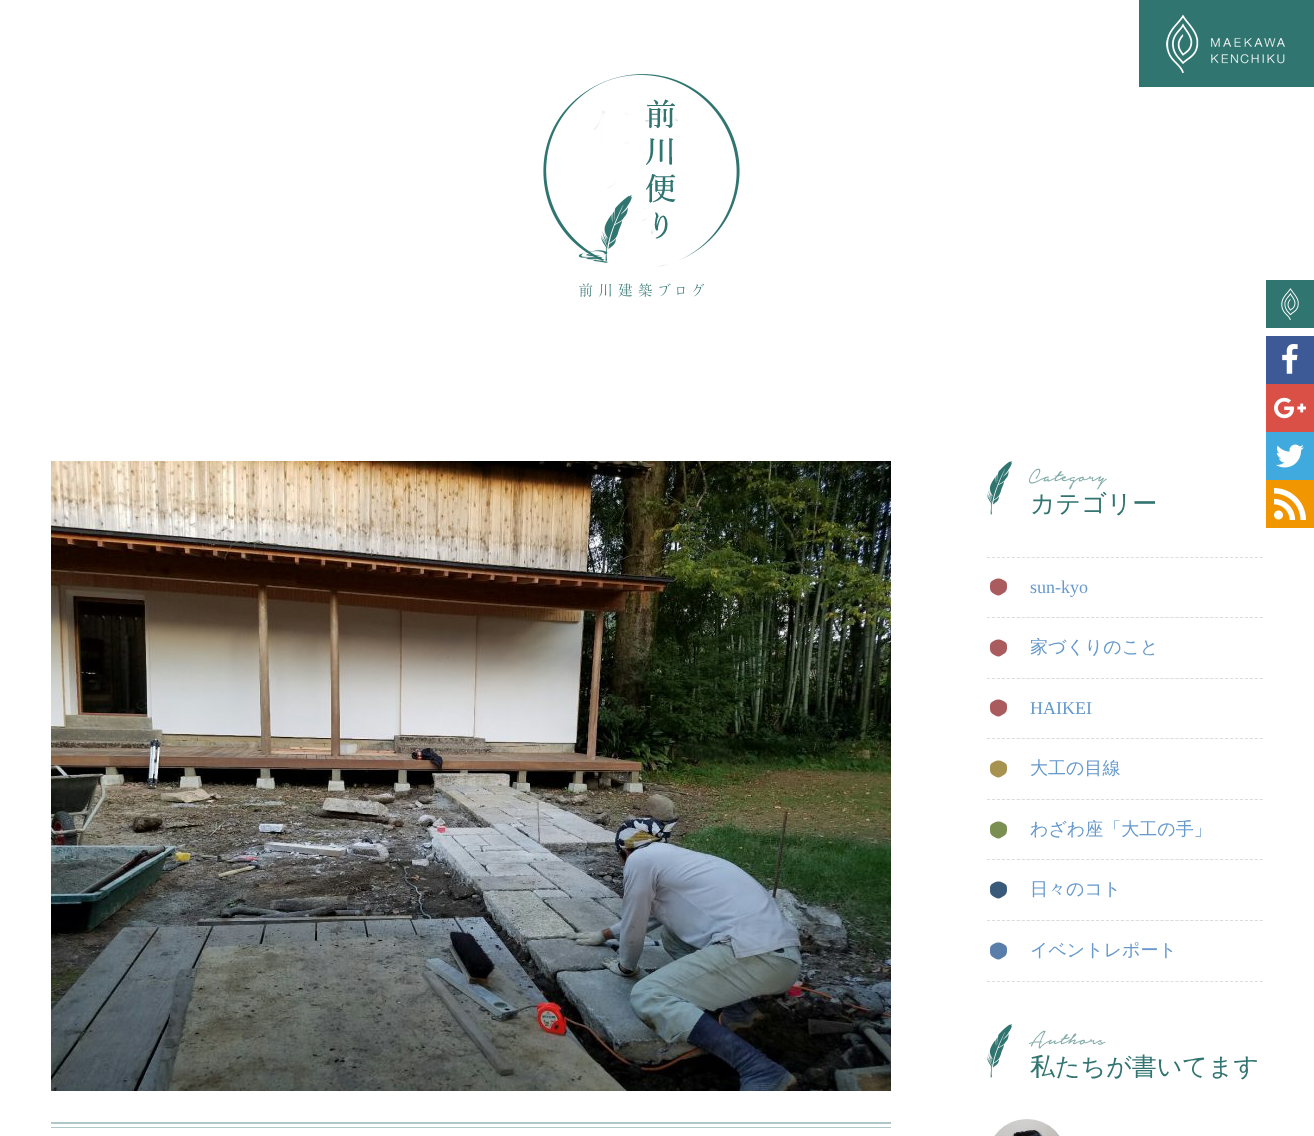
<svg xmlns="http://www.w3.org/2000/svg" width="1314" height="1136">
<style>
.a{font:500 25px WenQuanYi Zen Hei;fill:#317470}
.b{font:18px Liberation Serif;fill:#69c}
.c{font:500 18px WenQuanYi Zen Hei;fill:#69c}
</style>
<rect width="100%" height="100%" fill="#fff"/>
<image href="1.png" x="1139" y="0" width="175" height="87"/>
<image href="2.png" x="543" y="74" width="197" height="223"/>
<path fill="#317570" d="M1266 280h48v48H1266z"/>
<image href="3.png" x="1281" y="288" width="18" height="32"/>
<path fill="#3d5a96" d="M1266 336h48v48H1266z"/>
<image href="4.png" x="1282" y="344" width="16" height="30"/>
<path fill="#da4f46" d="M1266 384h48v48H1266z"/>
<image href="5.png" x="1274" y="397" width="32" height="22"/>
<path fill="#40aade" d="M1266 432h48v48H1266z"/>
<image href="6.png" x="1276" y="444" width="28" height="24"/>
<path fill="#f29600" d="M1266 480h48v48H1266z"/>
<image href="7.png" x="1274" y="488" width="32" height="32"/>
<image href="8.png" x="51" y="461" width="840" height="630"/>
<image href="9.png" x="51" y="1122" width="840" height="6"/>
<image href="10.png" x="987" y="461" width="120" height="54"/>
<path fill="none" stroke="#ddd" stroke-dasharray="3 1.96" d="M987 557.5h276"/>
<path fill="none" stroke="#ddd" stroke-dasharray="3 1.96" d="M987 617.5h276"/>
<image href="11.png" x="990" y="578" width="17" height="18"/>
<path fill="none" stroke="#ddd" stroke-dasharray="3 1.96" d="M987 617.5h276"/>
<path fill="none" stroke="#ddd" stroke-dasharray="3 1.96" d="M987 678.5h276"/>
<image href="11.png" x="990" y="639" width="17" height="18"/>
<path fill="none" stroke="#ddd" stroke-dasharray="3 1.96" d="M987 678.5h276"/>
<path fill="none" stroke="#ddd" stroke-dasharray="3 1.96" d="M987 738.5h276"/>
<image href="11.png" x="990" y="699" width="17" height="18"/>
<path fill="none" stroke="#ddd" stroke-dasharray="3 1.96" d="M987 738.5h276"/>
<path fill="none" stroke="#ddd" stroke-dasharray="3 1.96" d="M987 799.5h276"/>
<image href="12.png" x="990" y="760" width="17" height="18"/>
<path fill="none" stroke="#ddd" stroke-dasharray="3 1.96" d="M987 799.5h276"/>
<path fill="none" stroke="#ddd" stroke-dasharray="3 1.96" d="M987 859.5h276"/>
<image href="13.png" x="990" y="821" width="17" height="18"/>
<path fill="none" stroke="#ddd" stroke-dasharray="3 1.96" d="M987 859.5h276"/>
<path fill="none" stroke="#ddd" stroke-dasharray="3 1.96" d="M987 920.5h276"/>
<image href="14.png" x="990" y="881" width="17" height="18"/>
<path fill="none" stroke="#ddd" stroke-dasharray="3 1.96" d="M987 920.5h276"/>
<path fill="none" stroke="#ddd" stroke-dasharray="3 1.96" d="M987 981.5h276"/>
<image href="15.png" x="990" y="942" width="17" height="18"/>
<image href="16.png" x="987" y="1024" width="119" height="54"/>
<image href="17.png" x="994" y="1119" width="66" height="17"/>
<text class="a" x="1030" y="512">カテゴリー</text>
<text class="b" x="1030" y="593">sun-kyo</text>
<text class="c" x="1030" y="653">家づくりのこと</text>
<text class="b" x="1030" y="714">HAIKEI</text>
<text class="c" x="1030" y="774">大工の目線</text>
<text class="c" x="1030" y="835">わざわ座「大工の手」</text>
<text class="c" x="1030" y="895">日々のコト</text>
<text class="c" x="1030" y="956">イベントレポート</text>
<text class="a" x="1030" y="1075">私たちが書いてます</text>
</svg>
